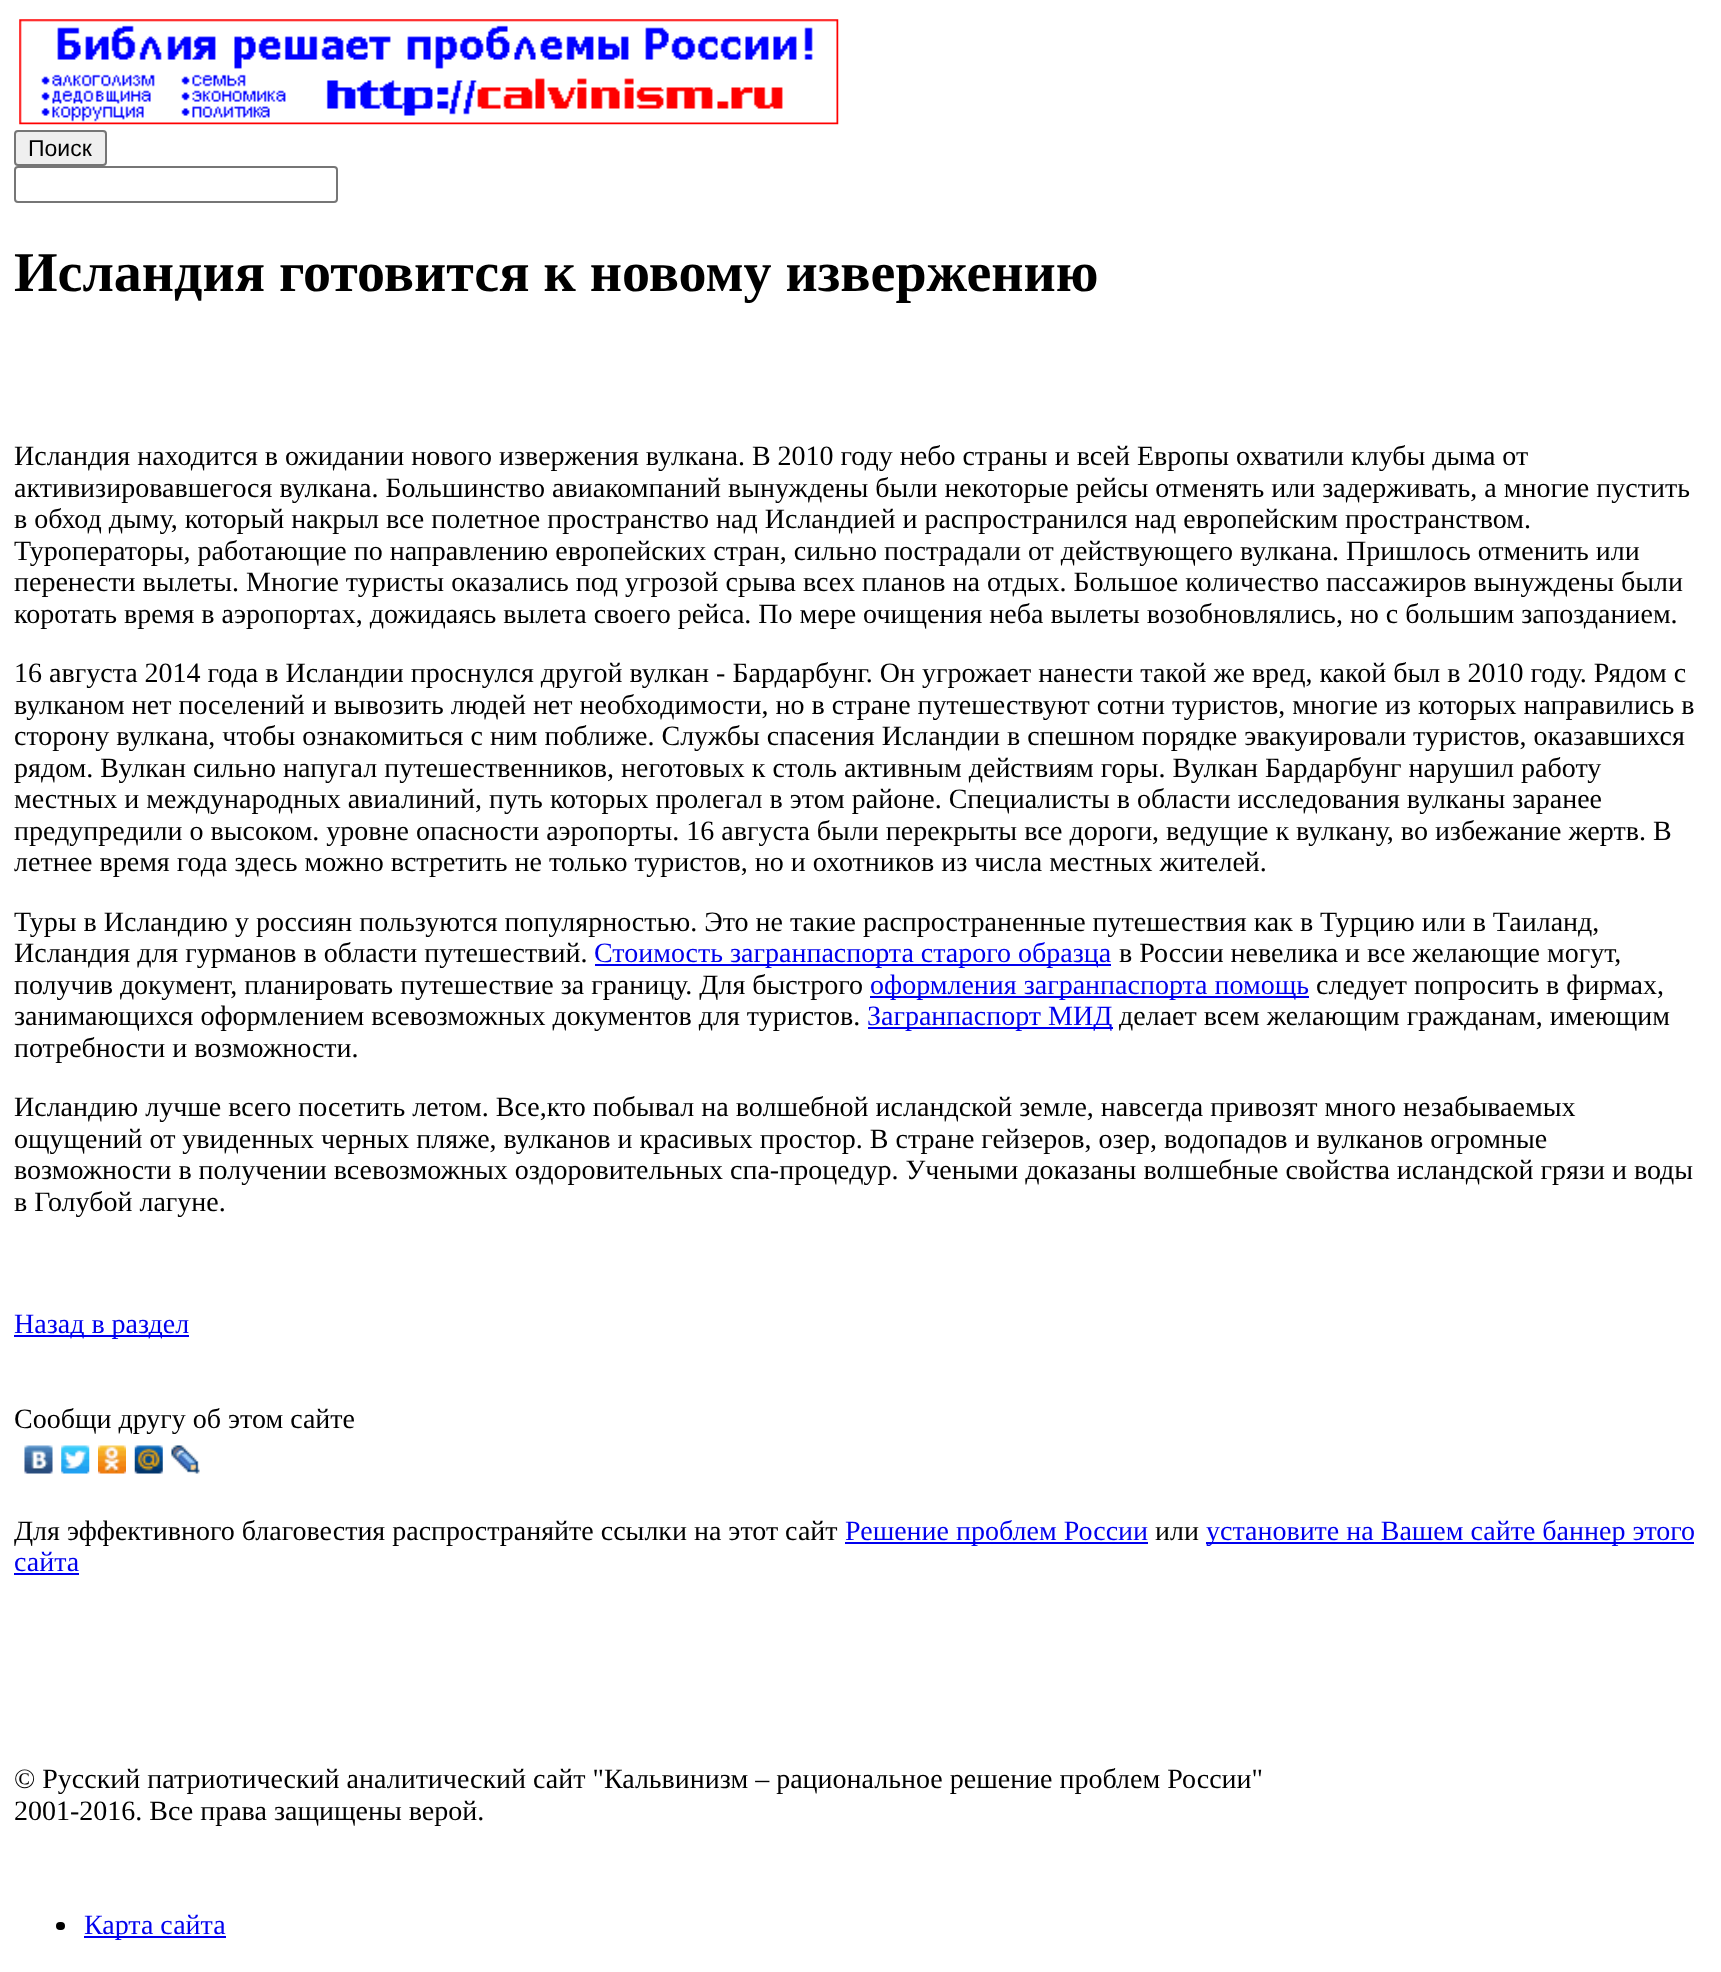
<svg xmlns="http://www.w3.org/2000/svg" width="1721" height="1972">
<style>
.a{font:23px Liberation Sans;fill:#000}
.b{font:bold 56px Liberation Serif;fill:#000}
.c{font:28px Liberation Serif;fill:#000}
.d{font:28px Liberation Serif;fill:#00e}
</style>
<rect width="100%" height="100%" fill="#fff"/>
<image href="1.png" x="19" y="19" width="820" height="106"/>
<rect fill="#efefef" stroke="#767676" stroke-width="2" x="15" y="131" width="91" height="34" rx="3"/>
<rect fill="none" stroke="#767676" stroke-width="2" x="15" y="167" width="322" height="35" rx="3"/>
<path fill="#00e" d="M595 964h516v2H595z"/>
<path fill="#00e" d="M870 996h439v2H870z"/>
<path fill="#00e" d="M868 1027h245v2H868z"/>
<path fill="#00e" d="M14 1335h175v2H14z"/>
<image href="2.png" x="24" y="1445" width="29" height="29"/>
<image href="3.png" x="61" y="1445" width="29" height="29"/>
<image href="4.png" x="98" y="1445" width="28" height="29"/>
<image href="5.png" x="134" y="1445" width="29" height="29"/>
<image href="6.png" x="171" y="1445" width="29" height="29"/>
<path fill="#00e" d="M845 1542h303v2H845z"/>
<path fill="#00e" d="M1206 1542h488v2H1206z"/>
<path fill="#00e" d="M14 1573h65v2H14z"/>
<rect fill="#000" x="56" y="1922" width="9" height="8" rx="4"/>
<path fill="#00e" d="M84 1936h142v2H84z"/>
<text class="a" x="28" y="156">Поиск</text>
<text class="b" x="14" y="291">Исландия готовится к новому извержению</text>
<text class="c" x="14" y="465">Исландия находится в ожидании нового извержения вулкана. В 2010 году небо страны и всей Европы охватили клубы дыма от</text>
<text class="c" x="14" y="497">активизировавшегося вулкана. Большинство авиакомпаний вынуждены были некоторые рейсы отменять или задерживать, а многие пустить</text>
<text class="c" x="14" y="528">в обход дыму, который накрыл все полетное пространство над Исландией и распространился над европейским пространством.</text>
<text class="c" x="14" y="560">Туроператоры, работающие по направлению европейских стран, сильно пострадали от действующего вулкана. Пришлось отменить или</text>
<text class="c" x="14" y="591">перенести вылеты. Многие туристы оказались под угрозой срыва всех планов на отдых. Большое количество пассажиров вынуждены были</text>
<text class="c" x="14" y="623">коротать время в аэропортах, дожидаясь вылета своего рейса. По мере очищения неба вылеты возобновлялись, но с большим запозданием.</text>
<text class="c" x="14" y="682">16 августа 2014 года в Исландии проснулся другой вулкан - Бардарбунг. Он угрожает нанести такой же вред, какой был в 2010 году. Рядом с</text>
<text class="c" x="14" y="714">вулканом нет поселений и вывозить людей нет необходимости, но в стране путешествуют сотни туристов, многие из которых направились в</text>
<text class="c" x="14" y="745">сторону вулкана, чтобы ознакомиться с ним поближе. Службы спасения Исландии в спешном порядке эвакуировали туристов, оказавшихся</text>
<text class="c" x="14" y="777">рядом. Вулкан сильно напугал путешественников, неготовых к столь активным действиям горы. Вулкан Бардарбунг нарушил работу</text>
<text class="c" x="14" y="808">местных и международных авиалиний, путь которых пролегал в этом районе. Специалисты в области исследования вулканы заранее</text>
<text class="c" x="14" y="840">предупредили о высоком. уровне опасности аэропорты. 16 августа были перекрыты все дороги, ведущие к вулкану, во избежание жертв. В</text>
<text class="c" x="14" y="871">летнее время года здесь можно встретить не только туристов, но и охотников из числа местных жителей.</text>
<text class="c" x="14" y="931">Туры в Исландию у россиян пользуются популярностью. Это не такие распространенные путешествия как в Турцию или в Таиланд,</text>
<text class="c" x="14" y="962">Исландия для гурманов в области путешествий.</text>
<text class="d" x="594" y="962">Стоимость загранпаспорта старого образца</text>
<text class="c" x="1119" y="962">в России невелика и все желающие могут,</text>
<text class="c" x="14" y="994">получив документ, планировать путешествие за границу. Для быстрого</text>
<text class="d" x="870" y="994">оформления загранпаспорта помощь</text>
<text class="c" x="1316" y="994">следует попросить в фирмах,</text>
<text class="c" x="14" y="1025">занимающихся оформлением всевозможных документов для туристов.</text>
<text class="d" x="867" y="1025">Загранпаспорт МИД</text>
<text class="c" x="1119" y="1025">делает всем желающим гражданам, имеющим</text>
<text class="c" x="14" y="1057">потребности и возможности.</text>
<text class="c" x="14" y="1116">Исландию лучше всего посетить летом. Все,кто побывал на волшебной исландской земле, навсегда привозят много незабываемых</text>
<text class="c" x="14" y="1148">ощущений от увиденных черных пляже, вулканов и красивых простор. В стране гейзеров, озер, водопадов и вулканов огромные</text>
<text class="c" x="14" y="1179">возможности в получении всевозможных оздоровительных спа-процедур. Учеными доказаны волшебные свойства исландской грязи и воды</text>
<text class="c" x="14" y="1211">в Голубой лагуне.</text>
<text class="d" x="14" y="1333">Назад в раздел</text>
<text class="c" x="14" y="1428">Сообщи другу об этом сайте</text>
<text class="c" x="14" y="1540">Для эффективного благовестия распространяйте ссылки на этот сайт</text>
<text class="d" x="845" y="1540">Решение проблем России</text>
<text class="c" x="1155" y="1540">или</text>
<text class="d" x="1206" y="1540">установите на Вашем сайте баннер этого</text>
<text class="d" x="14" y="1571">сайта</text>
<text class="c" x="14" y="1788">© Русский патриотический аналитический сайт "Кальвинизм – рациональное решение проблем России"</text>
<text class="c" x="14" y="1820">2001-2016. Все права защищены верой.</text>
<text class="d" x="84" y="1934">Карта сайта</text>
</svg>
